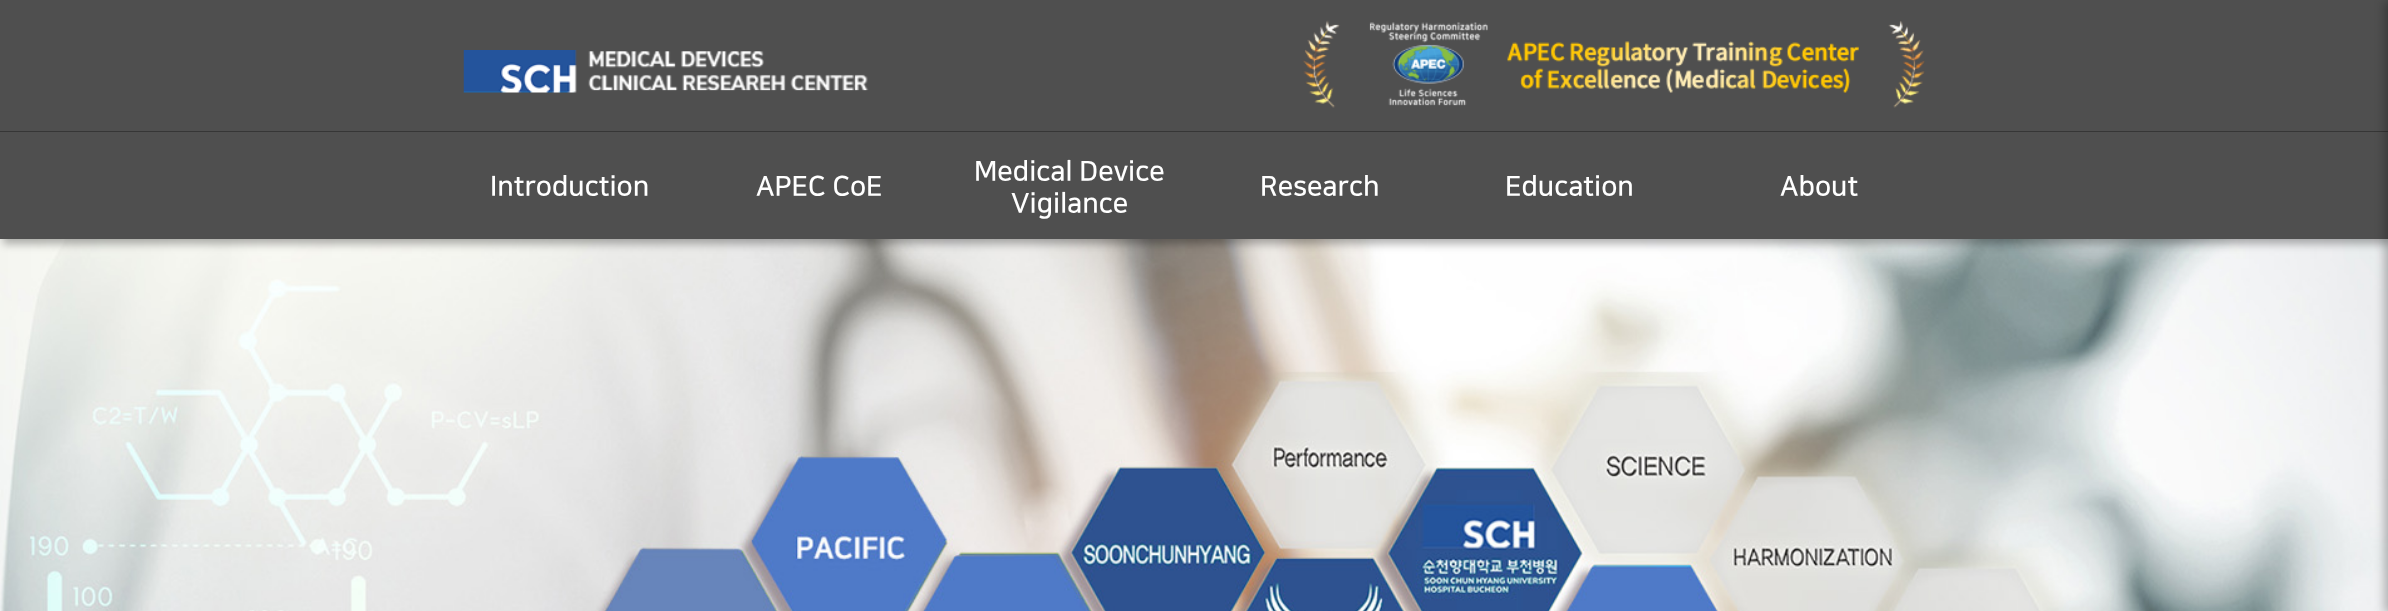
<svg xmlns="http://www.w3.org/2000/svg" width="2388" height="611">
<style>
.a{font:bold 27.5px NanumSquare;fill:#fff}
</style>
<rect width="100%" height="100%" fill="#fff"/>
<image href="3.png" x="0" y="239" width="2388" height="372"/>
<path fill="#0000004d" filter="blur(4px)" d="M3 5h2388v239H3z"/>
<path fill="#4f4f4f" d="M0 0h2388v239H0z"/>
<image href="1.png" x="463" y="50" width="406" height="43"/>
<image href="2.png" x="1302" y="20" width="623" height="88"/>
<path fill="#363636" d="M0 131h2388v1H0z"/>
<path fill="#00000040" filter="blur(5px)" d="M2384 1h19v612H2384z"/>
<text class="a" x="490" y="195">Introduction</text>
<text class="a" x="756" y="195">APEC CoE</text>
<text class="a" x="974" y="180">Medical Device</text>
<text class="a" x="1011" y="212">Vigilance</text>
<text class="a" x="1260" y="195">Research</text>
<text class="a" x="1505" y="195">Education</text>
<text class="a" x="1780" y="195">About</text>
</svg>
